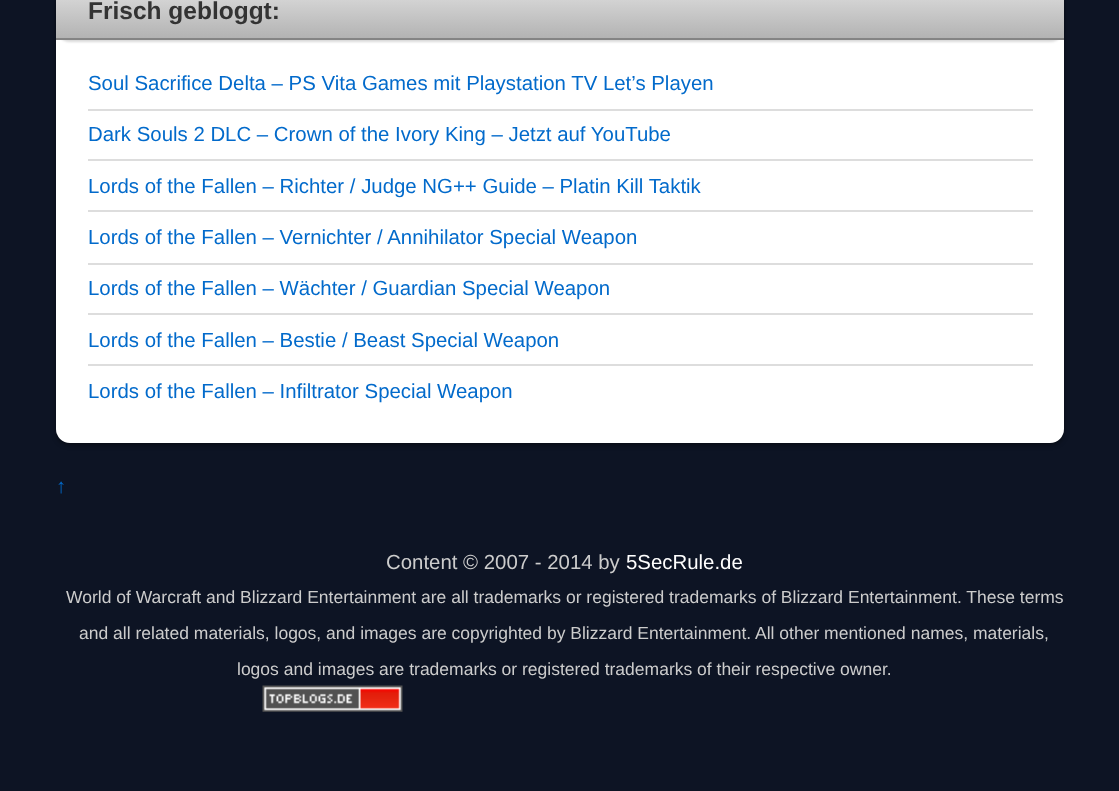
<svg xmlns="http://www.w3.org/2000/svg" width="1119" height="791">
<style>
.a{font:bold 24.5px Liberation Sans;fill:#333}
.b{font:20.4px Liberation Sans;fill:#026acb}
.c{font:20.4px Liberation Sans;fill:#ccc}
.d{font:20.4px Liberation Sans;fill:#fff}
.e{font:17.5px Liberation Sans;fill:#ccc}
</style>
<defs>
<linearGradient id="g1" gradientUnits="userSpaceOnUse" x1="560" y1="-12" x2="560" y2="39"><stop offset="0" stop-color="#ddd"/><stop offset="1" stop-color="#b2b2b2"/></linearGradient>
</defs>
<rect width="100%" height="100%" fill="#0d1424"/>
<rect fill="#00000066" filter="blur(2.5px)" x="56" y="-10" width="1008" height="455" rx="14"/>
<rect fill="#fff" x="56" y="-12" width="1008" height="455" rx="14"/>
<rect fill="#00000026" filter="blur(1px)" x="56" y="-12" width="1008" height="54" rx="14"/>
<path fill="url(#g1)" d="M56 0h1008v38H56z"/>
<path fill="#848484" d="M56 38h1008v2H56z"/>
<path fill="#ddd" d="M88 109h945v2H88z"/>
<path fill="#ddd" d="M88 159h945v2H88z"/>
<path fill="#ddd" d="M88 210h945v2H88z"/>
<path fill="#ddd" d="M88 263h945v2H88z"/>
<path fill="#ddd" d="M88 313h945v2H88z"/>
<path fill="#ddd" d="M88 364h945v2H88z"/>
<image href="1.png" x="262" y="685" width="141" height="27"/>
<text class="a" x="88" y="19">Frisch gebloggt:</text>
<text class="b" x="88" y="90">Soul Sacrifice Delta – PS Vita Games mit Playstation TV Let’s Playen</text>
<text class="b" x="88" y="141">Dark Souls 2 DLC – Crown of the Ivory King – Jetzt auf YouTube</text>
<text class="b" x="88" y="193">Lords of the Fallen – Richter / Judge NG++ Guide – Platin Kill Taktik</text>
<text class="b" x="88" y="244">Lords of the Fallen – Vernichter / Annihilator Special Weapon</text>
<text class="b" x="88" y="295">Lords of the Fallen – Wächter / Guardian Special Weapon</text>
<text class="b" x="88" y="347">Lords of the Fallen – Bestie / Beast Special Weapon</text>
<text class="b" x="88" y="398">Lords of the Fallen – Infiltrator Special Weapon</text>
<text class="b" x="56" y="493">↑</text>
<text class="c" x="386" y="569">Content © 2007 - 2014 by</text>
<text class="d" x="626" y="569">5SecRule.de</text>
<text class="e" x="66" y="603">World of Warcraft and Blizzard Entertainment are all trademarks or registered trademarks of Blizzard Entertainment. These terms</text>
<text class="e" x="79" y="639">and all related materials, logos, and images are copyrighted by Blizzard Entertainment. All other mentioned names, materials,</text>
<text class="e" x="237" y="675">logos and images are trademarks or registered trademarks of their respective owner.</text>
</svg>
